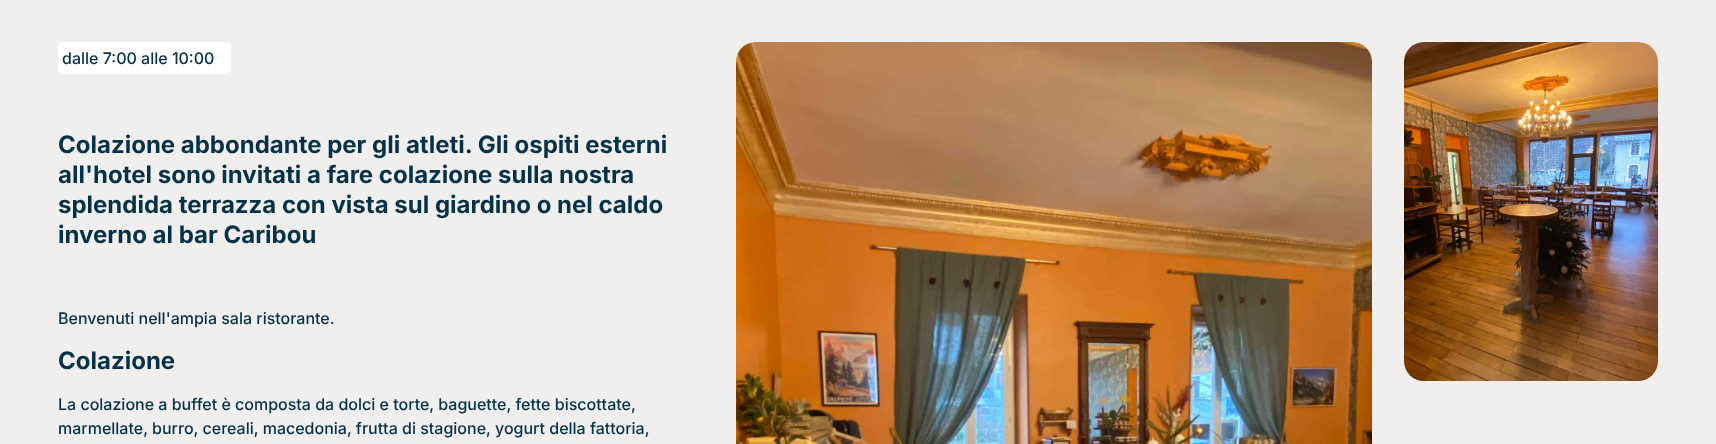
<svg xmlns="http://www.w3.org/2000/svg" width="1716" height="444">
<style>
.a{font:500 16px Inter;fill:#063247}
.b{font:bold 24px Inter;fill:#063247}
</style>
<rect width="100%" height="100%" fill="#f0efee"/>
<rect fill="#fff" x="58" y="42" width="173" height="32" rx="4"/>
<image href="1.png" x="736" y="42" width="636" height="402"/>
<image href="2.png" x="1404" y="42" width="254" height="339"/>
<text class="a" x="62" y="64">dalle 7:00 alle 10:00</text>
<text class="b" x="58" y="153">Colazione abbondante per gli atleti. Gli ospiti esterni</text>
<text class="b" x="58" y="183">all'hotel sono invitati a fare colazione sulla nostra</text>
<text class="b" x="58" y="213">splendida terrazza con vista sul giardino o nel caldo</text>
<text class="b" x="58" y="243">inverno al bar Caribou</text>
<text class="a" x="58" y="324">Benvenuti nell'ampia sala ristorante.</text>
<text class="b" x="58" y="369">Colazione</text>
<text class="a" x="58" y="410">La colazione a buffet è composta da dolci e torte, baguette, fette biscottate,</text>
<text class="a" x="58" y="434">marmellate, burro, cereali, macedonia, frutta di stagione, yogurt della fattoria,</text>
</svg>
